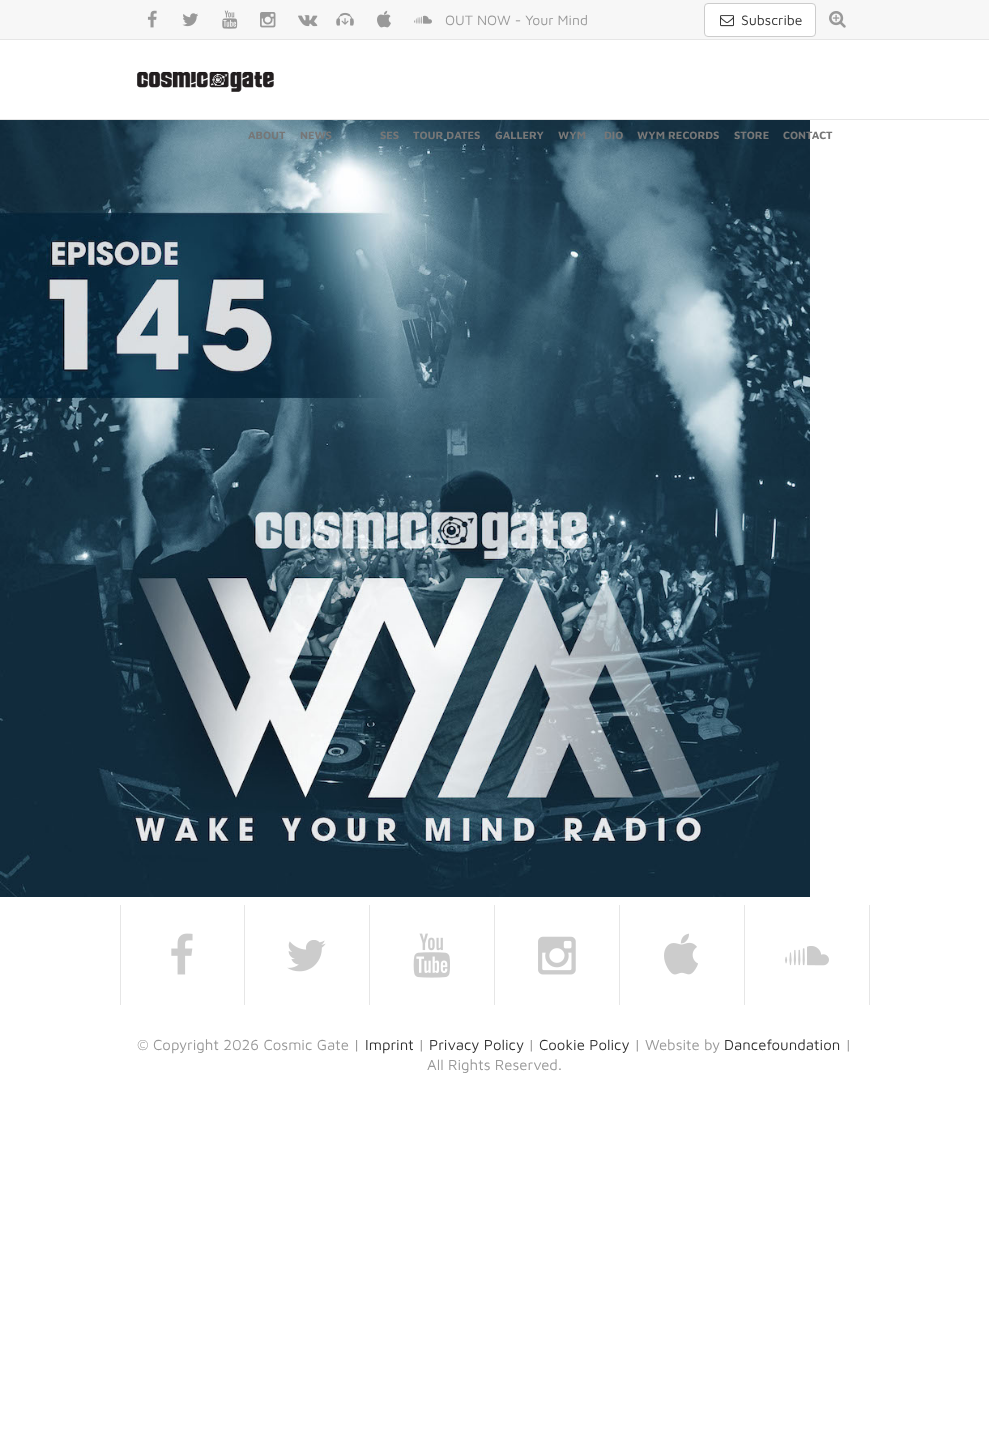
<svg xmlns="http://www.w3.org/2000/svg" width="989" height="1455">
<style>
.a{font:14px Maven Pro;fill:#999}
.b{font:14px Maven Pro;fill:#333}
.c{font:bold 11px Maven Pro;fill:#777}
.d{font:15px Maven Pro;fill:#999}
.e{font:15px Maven Pro;fill:#333}
</style>
<rect width="100%" height="100%" fill="#fff"/>
<path fill="#e6e6e6" d="M0 119h989v1H0z"/>
<path fill="#f7f7f7" d="M0 0h989v39H0z"/>
<path fill="#e6e6e6" d="M0 39h989v1H0z"/>
<image href="1.png" x="147" y="10" width="10" height="18"/>
<image href="2.png" x="182" y="13" width="16" height="14"/>
<image href="3.png" x="222" y="10" width="16" height="19"/>
<image href="4.png" x="260" y="12" width="16" height="16"/>
<image href="5.png" x="298" y="15" width="20" height="12"/>
<image href="6.png" x="336" y="12" width="18" height="14"/>
<image href="7.png" x="377" y="10" width="14" height="18"/>
<image href="8.png" x="414" y="15" width="18" height="9"/>
<rect fill="#fff" stroke="#ccc" x="704.5" y="3.5" width="111" height="33" rx="3.5"/>
<image href="9.png" x="720" y="15" width="14" height="12"/>
<image href="10.png" x="829" y="11" width="17" height="17"/>
<image href="11.png" x="137" y="71" width="137" height="21"/>
<image href="12.png" x="0" y="120" width="810" height="777"/>
<path fill="#e6e6e6" d="M244 905h1v100H244z"/>
<path fill="#e6e6e6" d="M120 905h1v100H120z"/>
<image href="13.png" x="171" y="933" width="22" height="42"/>
<path fill="#e6e6e6" d="M369 905h1v100H369z"/>
<image href="14.png" x="287" y="940" width="39" height="32"/>
<path fill="#e6e6e6" d="M494 905h1v100H494z"/>
<image href="15.png" x="413" y="933" width="37" height="45"/>
<path fill="#e6e6e6" d="M619 905h1v100H619z"/>
<image href="16.png" x="538" y="936" width="38" height="39"/>
<path fill="#e6e6e6" d="M744 905h1v100H744z"/>
<image href="17.png" x="664" y="933" width="34" height="42"/>
<path fill="#e6e6e6" d="M869 905h1v100H869z"/>
<image href="18.png" x="785" y="946" width="44" height="20"/>
<text class="a" x="445" y="25">OUT NOW - Your Mind</text>
<text class="b" x="741" y="25">Subscribe</text>
<text class="c" x="248" y="139">ABOUT</text>
<text class="c" x="300" y="139">NEWS</text>
<text class="c" x="380" y="139">SES</text>
<text class="c" x="413" y="139">TOUR DATES</text>
<text class="c" x="495" y="139">GALLERY</text>
<text class="c" x="558" y="139">WYM</text>
<text class="c" x="604" y="139">DIO</text>
<text class="c" x="637" y="139">WYM RECORDS</text>
<text class="c" x="734" y="139">STORE</text>
<text class="c" x="783" y="139">CONTACT</text>
<text class="d" x="137" y="1050">© Copyright 2026 Cosmic Gate |</text>
<text class="e" x="365" y="1050">Imprint</text>
<text class="d" x="418" y="1050">|</text>
<text class="e" x="429" y="1050">Privacy Policy</text>
<text class="d" x="528" y="1050">|</text>
<text class="e" x="539" y="1050">Cookie Policy</text>
<text class="d" x="634" y="1050">| Website by</text>
<text class="e" x="724" y="1050">Dancefoundation</text>
<text class="d" x="845" y="1050">|</text>
<text class="d" x="427" y="1070">All Rights Reserved.</text>
</svg>
